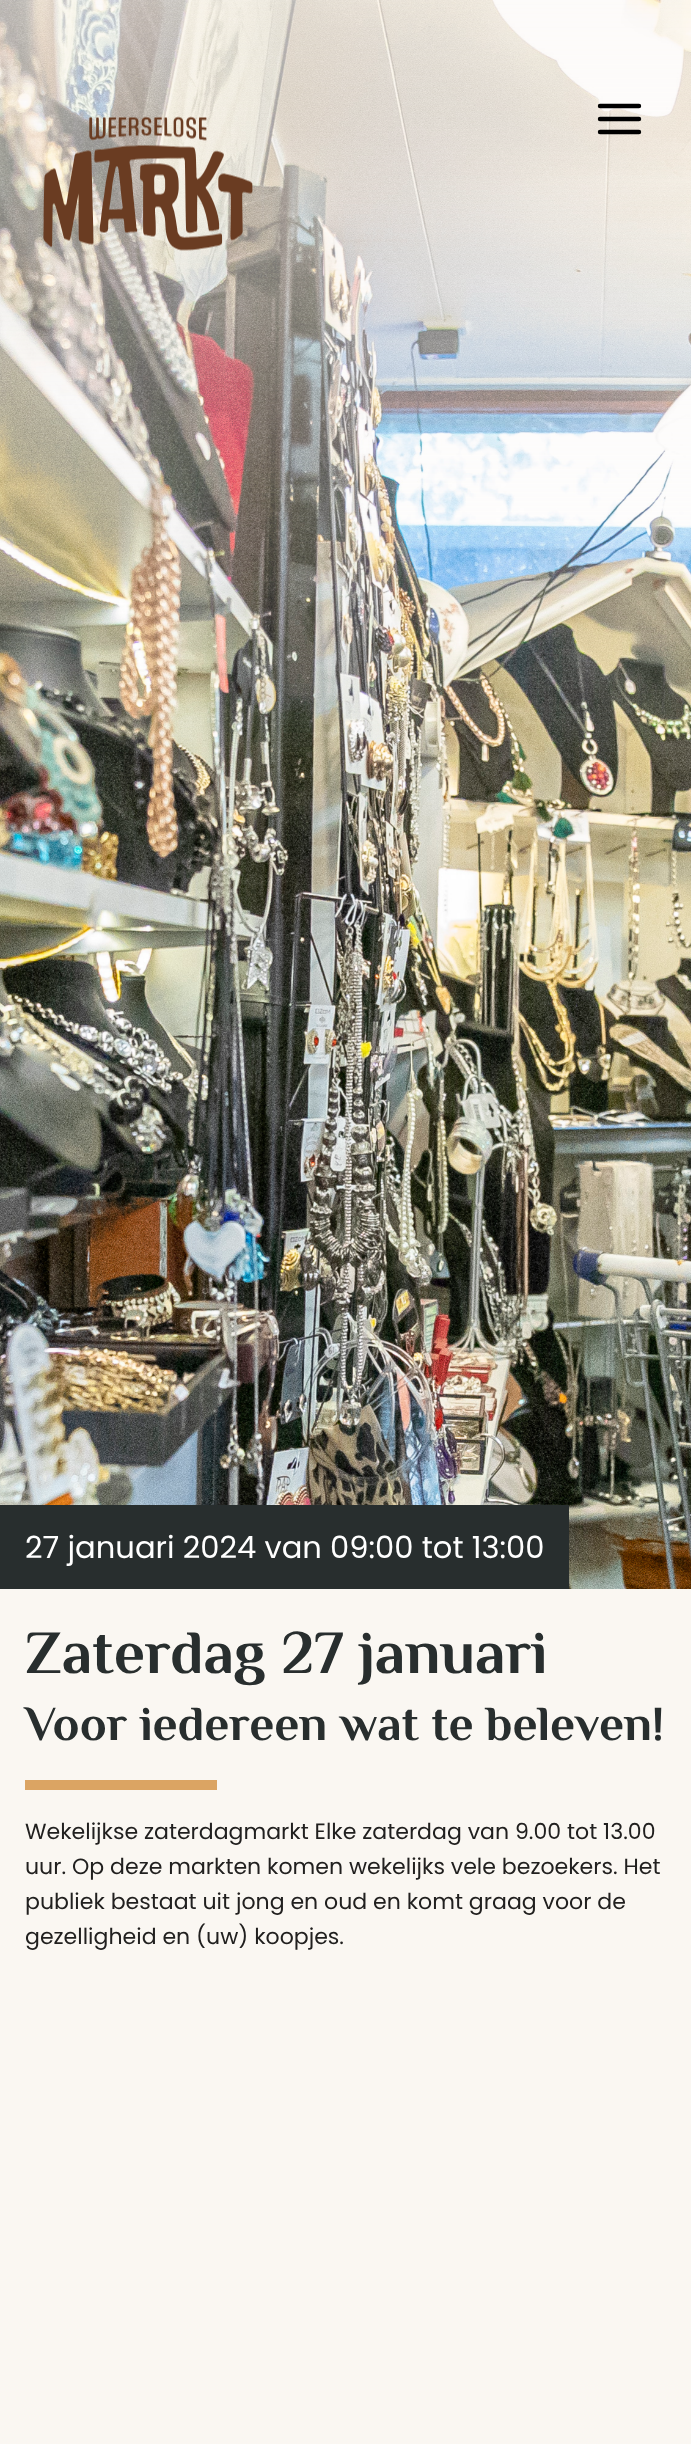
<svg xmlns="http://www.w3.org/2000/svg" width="691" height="2444">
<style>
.a{font:30.6px Poppins;fill:#fff}
.b{font:bold 61.25px Philosopher;fill:#282e2e}
.c{font:bold 49px Philosopher;fill:#282e2e}
.d{font:22.05px Poppins;fill:#21201f}
</style>
<rect width="100%" height="100%" fill="#fff"/>
<image href="2.png" x="0" y="0" width="691" height="1589"/>
<image href="1.png" x="43" y="116" width="210" height="135"/>
<path fill="none" stroke="#000" stroke-width="4.4" stroke-linecap="round" stroke-linejoin="round" d="M600 119h39m-39-13h39m-39 26h39"/>
<path fill="#282e2e" d="M0 1505h569v84H0z"/>
<path fill="#faf7f2" d="M0 1589h691v855H0z"/>
<path fill="#dba463" d="M25 1780h192v10H25z"/>
<text class="a" x="25" y="1558">27 januari 2024 van 09:00 tot 13:00</text>
<text class="b" x="25" y="1673">Zaterdag 27 januari</text>
<text class="c" x="25" y="1740">Voor iedereen wat te beleven!</text>
<text class="d" x="25" y="1839">Wekelijkse zaterdagmarkt Elke zaterdag van 9.00 tot 13.00</text>
<text class="d" x="25" y="1874">uur. Op deze markten komen wekelijks vele bezoekers. Het</text>
<text class="d" x="25" y="1909">publiek bestaat uit jong en oud en komt graag voor de</text>
<text class="d" x="25" y="1944">gezelligheid en (uw) koopjes.</text>
</svg>
